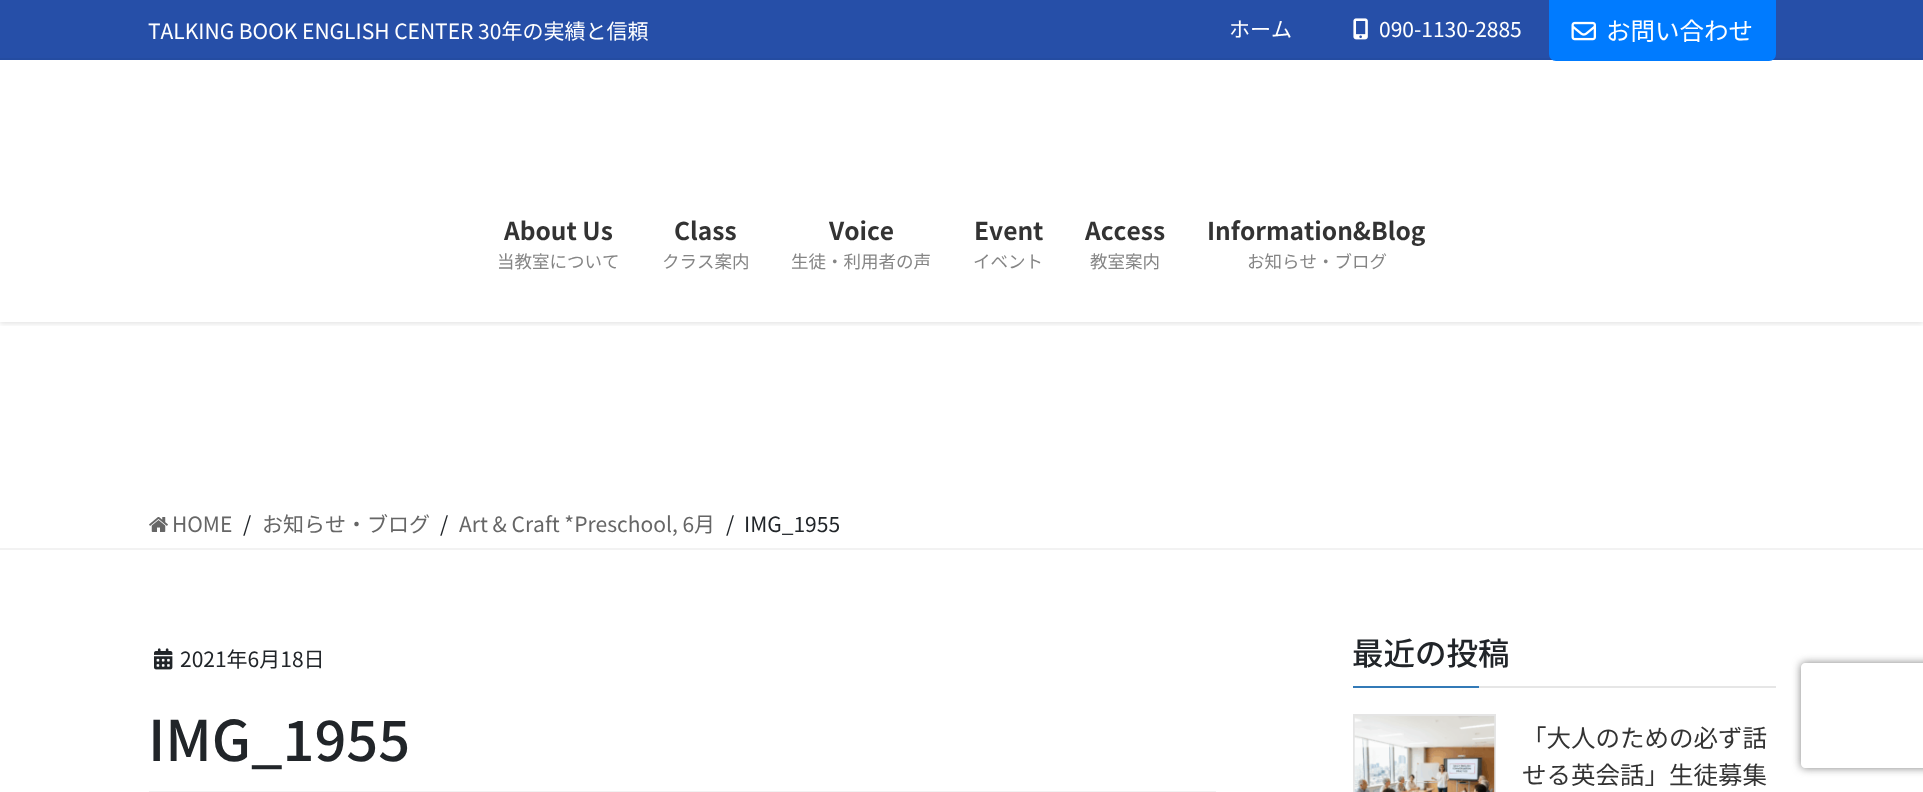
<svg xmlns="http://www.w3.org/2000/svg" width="1923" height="792">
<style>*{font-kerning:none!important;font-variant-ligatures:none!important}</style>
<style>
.a{font:21px Noto Sans JP;fill:#fff}
.b{font:24.5px Noto Sans JP;fill:#fff}
.c{font:bold 24.5px Noto Sans JP;fill:#333}
.d{font:17.5px Noto Sans JP;fill:#858585}
.e{font:21px Noto Sans JP;fill:#666}
.f{font:21px Noto Sans JP;fill:#212529}
.g{font:500 56px Noto Sans JP;fill:#212529}
.h{font:500 31.5px Noto Sans JP;fill:#212529}
.i{font:24.5px Noto Sans JP;fill:#333}
</style>
<defs>
<clipPath id="clip1"><path d="M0 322h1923v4H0z"/></clipPath>
<clipPath id="clip2"><path d="M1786 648h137v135h-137zm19 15h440c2 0 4 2 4 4v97c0 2-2 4-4 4h-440c-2 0-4-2-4-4v-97c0-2 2-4 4-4z" clip-rule="evenodd"/></clipPath>
</defs>
<rect width="100%" height="100%" fill="#fff"/>
<g clip-path="url(#clip1)">
<path fill="#0000001a" filter="blur(2.5px)" d="M0 -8h1923v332H0z"/>
</g>
<path fill="#264fa8" d="M0 0h1923v58H0z"/>
<path fill="#244ca1" d="M0 58h1923v2H0z"/>
<image href="1.png" x="1353" y="18" width="15" height="22"/>
<path fill="#007bff" stroke="#007bff" stroke-width="2" d="M1550 1h225v53c0 3.5-2.5 6-6 6h-213c-3.5 0-6-2.5-6-6z"/>
<image href="2.png" x="1571" y="21" width="25" height="20"/>
<path fill="#f2f2f2" d="M0 548h1923v2H0z"/>
<image href="3.png" x="149" y="517" width="19" height="15"/>
<path fill="#f2f2f2" d="M149 791h1067v1H149z"/>
<image href="4.png" x="154" y="648" width="19" height="22"/>
<path fill="#e6e6e6" d="M1479 686h297v2H1479z"/>
<path fill="#337ab7" d="M1353 686h126v2H1353z"/>
<path fill="none" stroke="#e5e5e5" stroke-width="2" d="M1354 715h141v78H1354z"/>
<image href="5.png" x="1354" y="716" width="141" height="76"/>
<g clip-path="url(#clip2)">
<rect fill="#808080" filter="blur(4.5px)" x="1801" y="663" width="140" height="105" rx="4"/>
</g>
<text class="a" x="148" y="39">TALKING BOOK ENGLISH CENTER 30年の実績と信頼</text>
<text class="a" x="1229" y="37">ホーム</text>
<text class="a" x="1379" y="37">090-1130-2885</text>
<text class="b" x="1606" y="40">お問い合わせ</text>
<text class="c" x="504" y="240">About Us</text>
<text class="d" x="497" y="268">当教室について</text>
<text class="c" x="674" y="240">Class</text>
<text class="d" x="662" y="268">クラス案内</text>
<text class="c" x="829" y="240">Voice</text>
<text class="d" x="791" y="268">生徒・利用者の声</text>
<text class="c" x="974" y="240">Event</text>
<text class="d" x="973" y="268">イベント</text>
<text class="c" x="1085" y="240">Access</text>
<text class="d" x="1090" y="268">教室案内</text>
<text class="c" x="1207" y="240">Information&amp;Blog</text>
<text class="d" x="1247" y="268">お知らせ・ブログ</text>
<text class="e" x="172" y="532">HOME</text>
<text class="f" x="243" y="532">/</text>
<text class="e" x="262" y="532">お知らせ・ブログ</text>
<text class="f" x="440" y="532">/</text>
<text class="e" x="459" y="532">Art &amp; Craft *Preschool, 6月</text>
<text class="f" x="726" y="532">/</text>
<text class="f" x="744" y="532">IMG_1955</text>
<text class="f" x="180" y="667">2021年6月18日</text>
<text class="g" x="148" y="761">IMG_1955</text>
<text class="h" x="1352" y="665">最近の投稿</text>
<text class="i" x="1522" y="747">「大人のための必ず話</text>
<text class="i" x="1522" y="784">せる英会話」生徒募集</text>
</svg>
